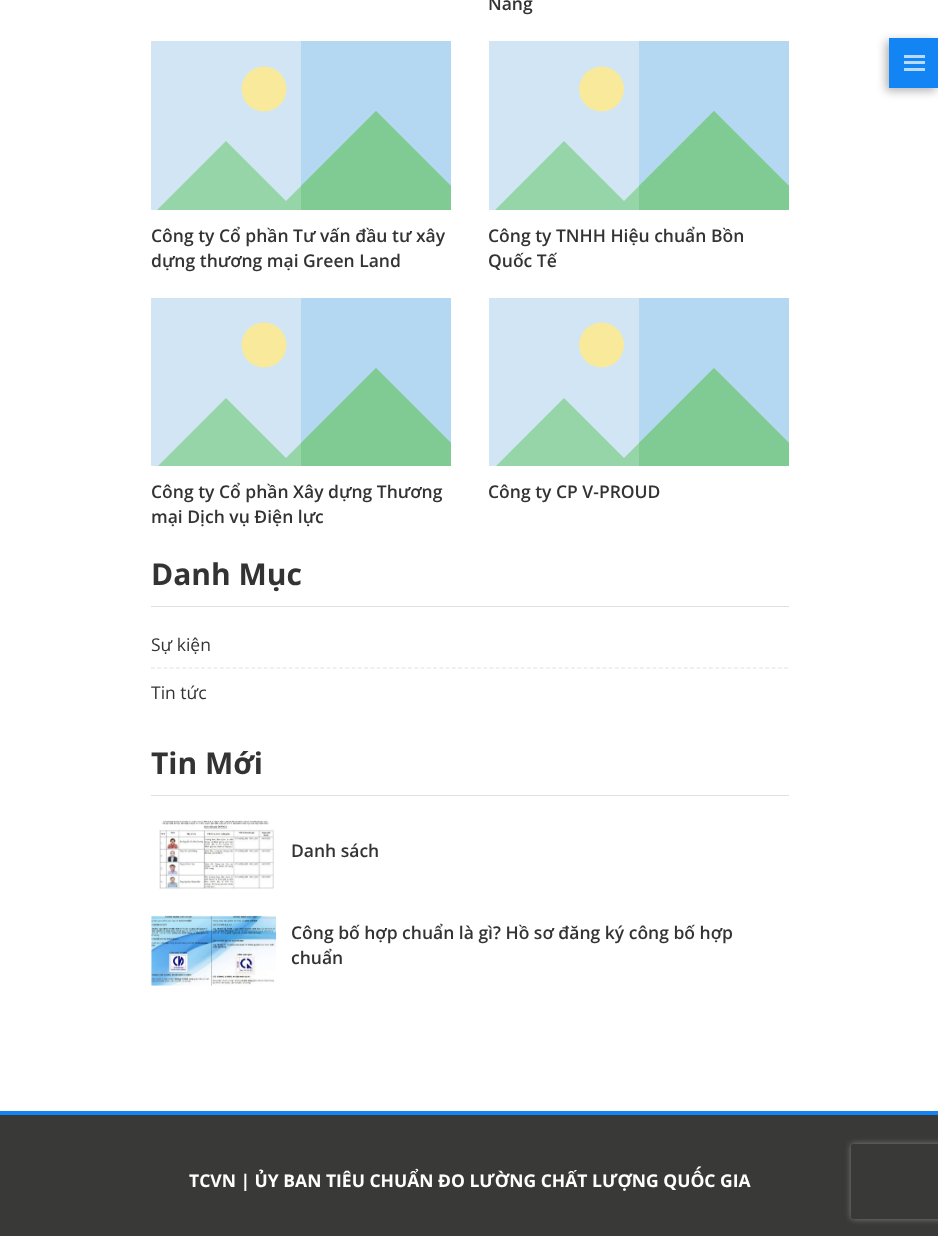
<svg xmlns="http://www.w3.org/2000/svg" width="938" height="1236">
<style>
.a{font:600 17.5px Open Sans;fill:#333}
.b{font:bold 30px Open Sans;fill:#333}
.c{font:17.5px Open Sans;fill:#333}
.d{font:bold 17.5px Open Sans;fill:#fff}
</style>
<defs>
<clipPath id="clip1"><path d="M151 41h300v169H151z"/></clipPath>
<clipPath id="clip2"><path d="M489 41h300v169H489z"/></clipPath>
<clipPath id="clip3"><path d="M151 298h300v168H151z"/></clipPath>
<clipPath id="clip4"><path d="M489 298h300v168H489z"/></clipPath>
<clipPath id="clip5"><path d="M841 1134h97v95h-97zm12.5 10h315c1.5 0 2.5 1 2.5 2.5v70c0 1.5-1 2.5-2.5 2.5h-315c-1.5 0-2.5-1-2.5-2.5v-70c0-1.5 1-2.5 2.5-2.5z" clip-rule="evenodd"/></clipPath>
</defs>
<rect width="100%" height="100%" fill="#fff"/>
<path fill="#d1e5f5" d="M151 41h150v169H151z"/>
<path fill="#b4d8f1" d="M301 41h150v145H301z"/>
<g clip-path="url(#clip1)">
<path fill="#95d5a7" d="M451 186l-75-75l-90 90l-60-60l-75 75v45h300z"/>
</g>
<circle fill="#f8e99b" cx="264" cy="89" r="22.5"/>
<g clip-path="url(#clip1)">
<path fill="#80cb93" d="M451 186l-75-75l-75 75v75h150z"/>
</g>
<path fill="#d1e5f5" d="M489 41h150v169H489z"/>
<path fill="#b4d8f1" d="M639 41h150v145H639z"/>
<g clip-path="url(#clip2)">
<path fill="#95d5a7" d="M789 186l-75-75l-90 90l-60-60l-75 75v45h300z"/>
</g>
<circle fill="#f8e99b" cx="601.5" cy="89" r="22.5"/>
<g clip-path="url(#clip2)">
<path fill="#80cb93" d="M789 186l-75-75l-75 75v75h150z"/>
</g>
<path fill="#d1e5f5" d="M151 298h150v168H151z"/>
<path fill="#b4d8f1" d="M301 298h150v145H301z"/>
<g clip-path="url(#clip3)">
<path fill="#95d5a7" d="M451 443l-75-75l-90 90l-60-60l-75 75v45h300z"/>
</g>
<circle fill="#f8e99b" cx="264" cy="345" r="22.5"/>
<g clip-path="url(#clip3)">
<path fill="#80cb93" d="M451 443l-75-75l-75 75v75h150z"/>
</g>
<path fill="#d1e5f5" d="M489 298h150v168H489z"/>
<path fill="#b4d8f1" d="M639 298h150v145H639z"/>
<g clip-path="url(#clip4)">
<path fill="#95d5a7" d="M789 443l-75-75l-90 90l-60-60l-75 75v45h300z"/>
</g>
<circle fill="#f8e99b" cx="601.5" cy="345" r="22.5"/>
<g clip-path="url(#clip4)">
<path fill="#80cb93" d="M789 443l-75-75l-75 75v75h150z"/>
</g>
<path fill="#e1e1e1" d="M151 606h638v1H151z"/>
<path fill="none" stroke="#e1e1e1" stroke-width="1.2" stroke-dasharray="3.75 2.52" d="M151 668h638"/>
<path fill="#e1e1e1" d="M151 795h638v1H151z"/>
<image href="1.png" x="159" y="820" width="115" height="70"/>
<image href="2.png" x="151" y="915" width="126" height="71"/>
<path fill="#0000004d" filter="blur(5px)" d="M886 41h50v50H886z"/>
<path fill="#1284f4" d="M889 38h49v50H889z"/>
<path fill="#b8dafc" d="M904 55h21v3H904z"/>
<path fill="#b8dafc" d="M904 61h21v3H904z"/>
<path fill="#b8dafc" d="M904 68h21v3H904z"/>
<path fill="#393937" d="M0 1115h938v121H0z"/>
<path fill="#1284f4" d="M0 1111h938v4H0z"/>
<g clip-path="url(#clip5)">
<rect fill="#808080" filter="blur(3px)" x="851" y="1144" width="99" height="75" rx="2.5"/>
</g>
<text class="a" x="488" y="10">Nẵng</text>
<text class="a" x="151" y="242">Công ty Cổ phần Tư vấn đầu tư xây</text>
<text class="a" x="151" y="267">dựng thương mại Green Land</text>
<text class="a" x="488" y="242">Công ty TNHH Hiệu chuẩn Bồn</text>
<text class="a" x="488" y="267">Quốc Tế</text>
<text class="a" x="151" y="498">Công ty Cổ phần Xây dựng Thương</text>
<text class="a" x="151" y="523">mại Dịch vụ Điện lực</text>
<text class="a" x="488" y="498">Công ty CP V-PROUD</text>
<text class="b" x="151" y="585">Danh Mục</text>
<text class="c" x="151" y="651">Sự kiện</text>
<text class="c" x="151" y="699">Tin tức</text>
<text class="b" x="151" y="774">Tin Mới</text>
<text class="a" x="291" y="857">Danh sách</text>
<text class="a" x="291" y="939">Công bố hợp chuẩn là gì? Hồ sơ đăng ký công bố hợp</text>
<text class="a" x="291" y="964">chuẩn</text>
<text class="d" x="189" y="1187">TCVN | ỦY BAN TIÊU CHUẨN ĐO LƯỜNG CHẤT LƯỢNG QUỐC GIA</text>
</svg>
